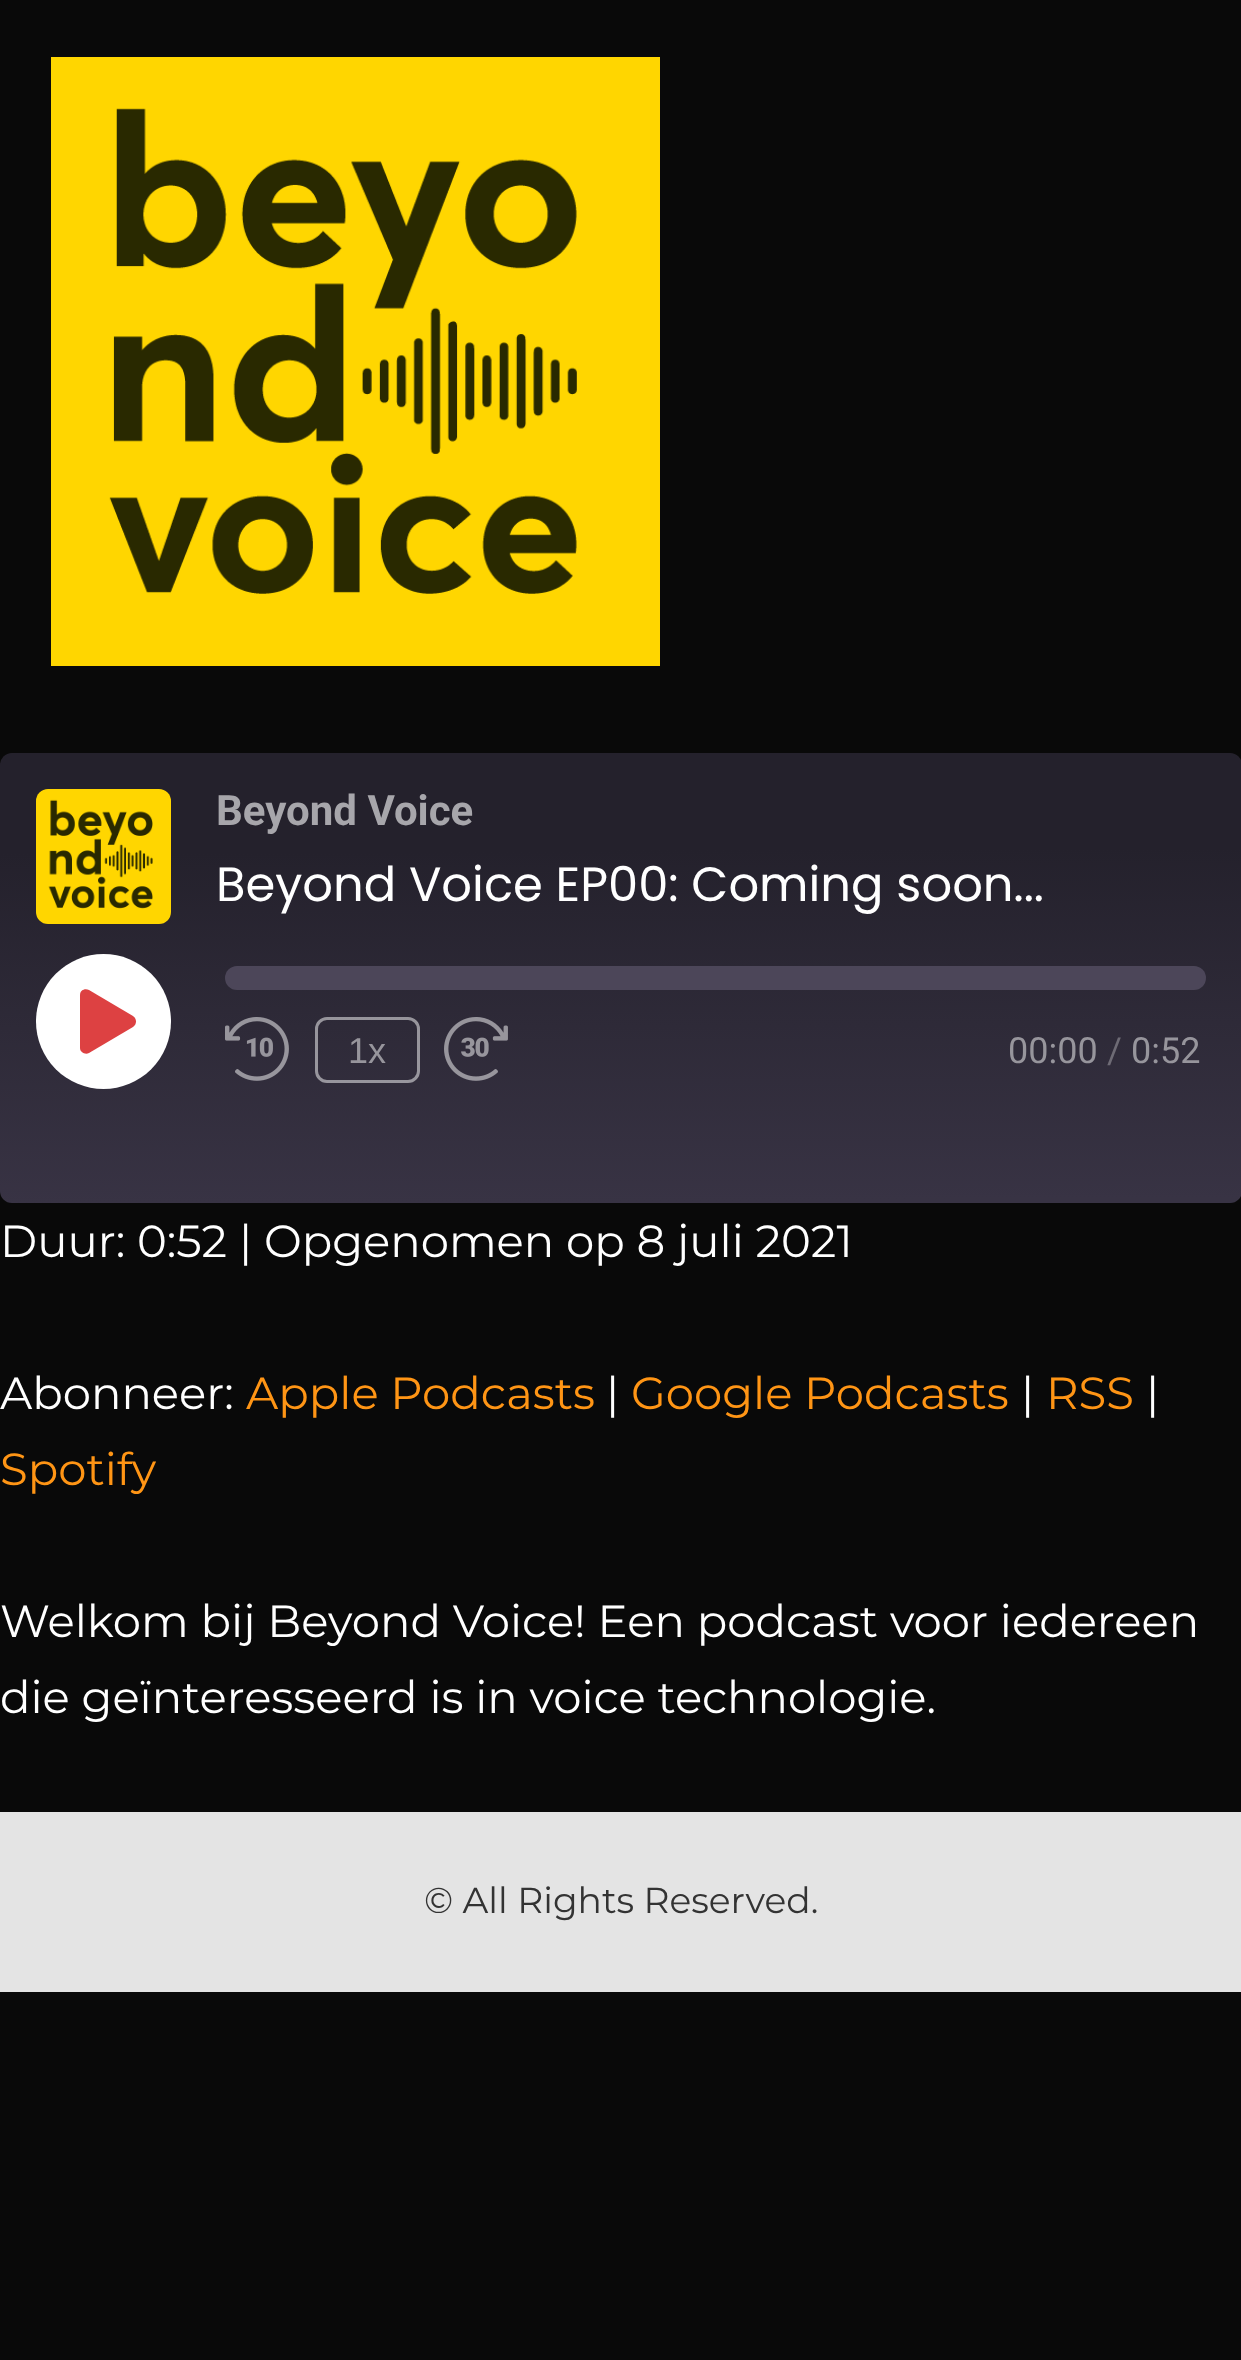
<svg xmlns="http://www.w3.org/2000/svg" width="1241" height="2360">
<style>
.a{font:bold 42px Roboto;fill:#a7a6ab}
.b{font:48px Poppins;fill:#fff}
.c{font:36px Liberation Sans;fill:#97959c}
.d{font:36px Roboto;fill:#97959c}
.e{font:36px Roboto;fill:#6e6b75}
.f{font:45px Montserrat;fill:#fff}
.g{font:45px Montserrat;fill:#ff9515}
.h{font:36px Montserrat;fill:#333}
</style>
<defs>
<linearGradient id="g1" gradientUnits="userSpaceOnUse" x1="622" y1="1206" x2="620" y2="750"><stop offset="0.01" stop-color="#383344"/><stop offset="0.78" stop-color="#24212c"/></linearGradient>
</defs>
<rect width="100%" height="100%" fill="#090909"/>
<image href="1.png" x="51" y="57" width="609" height="609"/>
<rect fill="url(#g1)" y="753" width="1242" height="450" rx="12"/>
<image href="2.png" x="36" y="789" width="135" height="135"/>
<circle fill="#fff" cx="103.5" cy="1021.5" r="67.5"/>
<path fill="#dd4142" d="M133 1016l-44-26c-4-2-9 0-9 5v53c0 4 5 7 9 5l44-26c4-3 4-8 0-11z"/>
<rect fill="#4c4659" x="225" y="966" width="981" height="24" rx="12"/>
<image href="3.png" x="225" y="1017" width="64" height="64"/>
<rect fill="none" stroke="#ffffff80" stroke-width="3" x="316.5" y="1018.5" width="102" height="63" rx="10.5"/>
<image href="4.png" x="444" y="1017" width="64" height="64"/>
<path fill="#e4e4e4" d="M0 1812h1241v180H0z"/>
<text class="a" x="216" y="825">Beyond Voice</text>
<text class="b" x="216" y="901">Beyond Voice EP00: Coming soon...</text>
<text class="c" x="348" y="1063">1x</text>
<text class="d" x="1008" y="1063">00:00</text>
<text class="e" x="1107" y="1063">/</text>
<text class="d" x="1131" y="1063">0:52</text>
<text class="f" x="0" y="1257">Duur: 0:52 | Opgenomen op 8 juli 2021</text>
<text class="f" x="0" y="1409">Abonneer:</text>
<text class="g" x="246" y="1409">Apple Podcasts</text>
<text class="f" x="606" y="1409">|</text>
<text class="g" x="631" y="1409">Google Podcasts</text>
<text class="f" x="1021" y="1409">|</text>
<text class="g" x="1046" y="1409">RSS</text>
<text class="f" x="1146" y="1409">|</text>
<text class="g" x="0" y="1485">Spotify</text>
<text class="f" x="0" y="1637">Welkom bij Beyond Voice! Een podcast voor iedereen</text>
<text class="f" x="0" y="1713">die geïnteresseerd is in voice technologie.</text>
<text class="h" x="424" y="1913">© All Rights Reserved.</text>
</svg>
